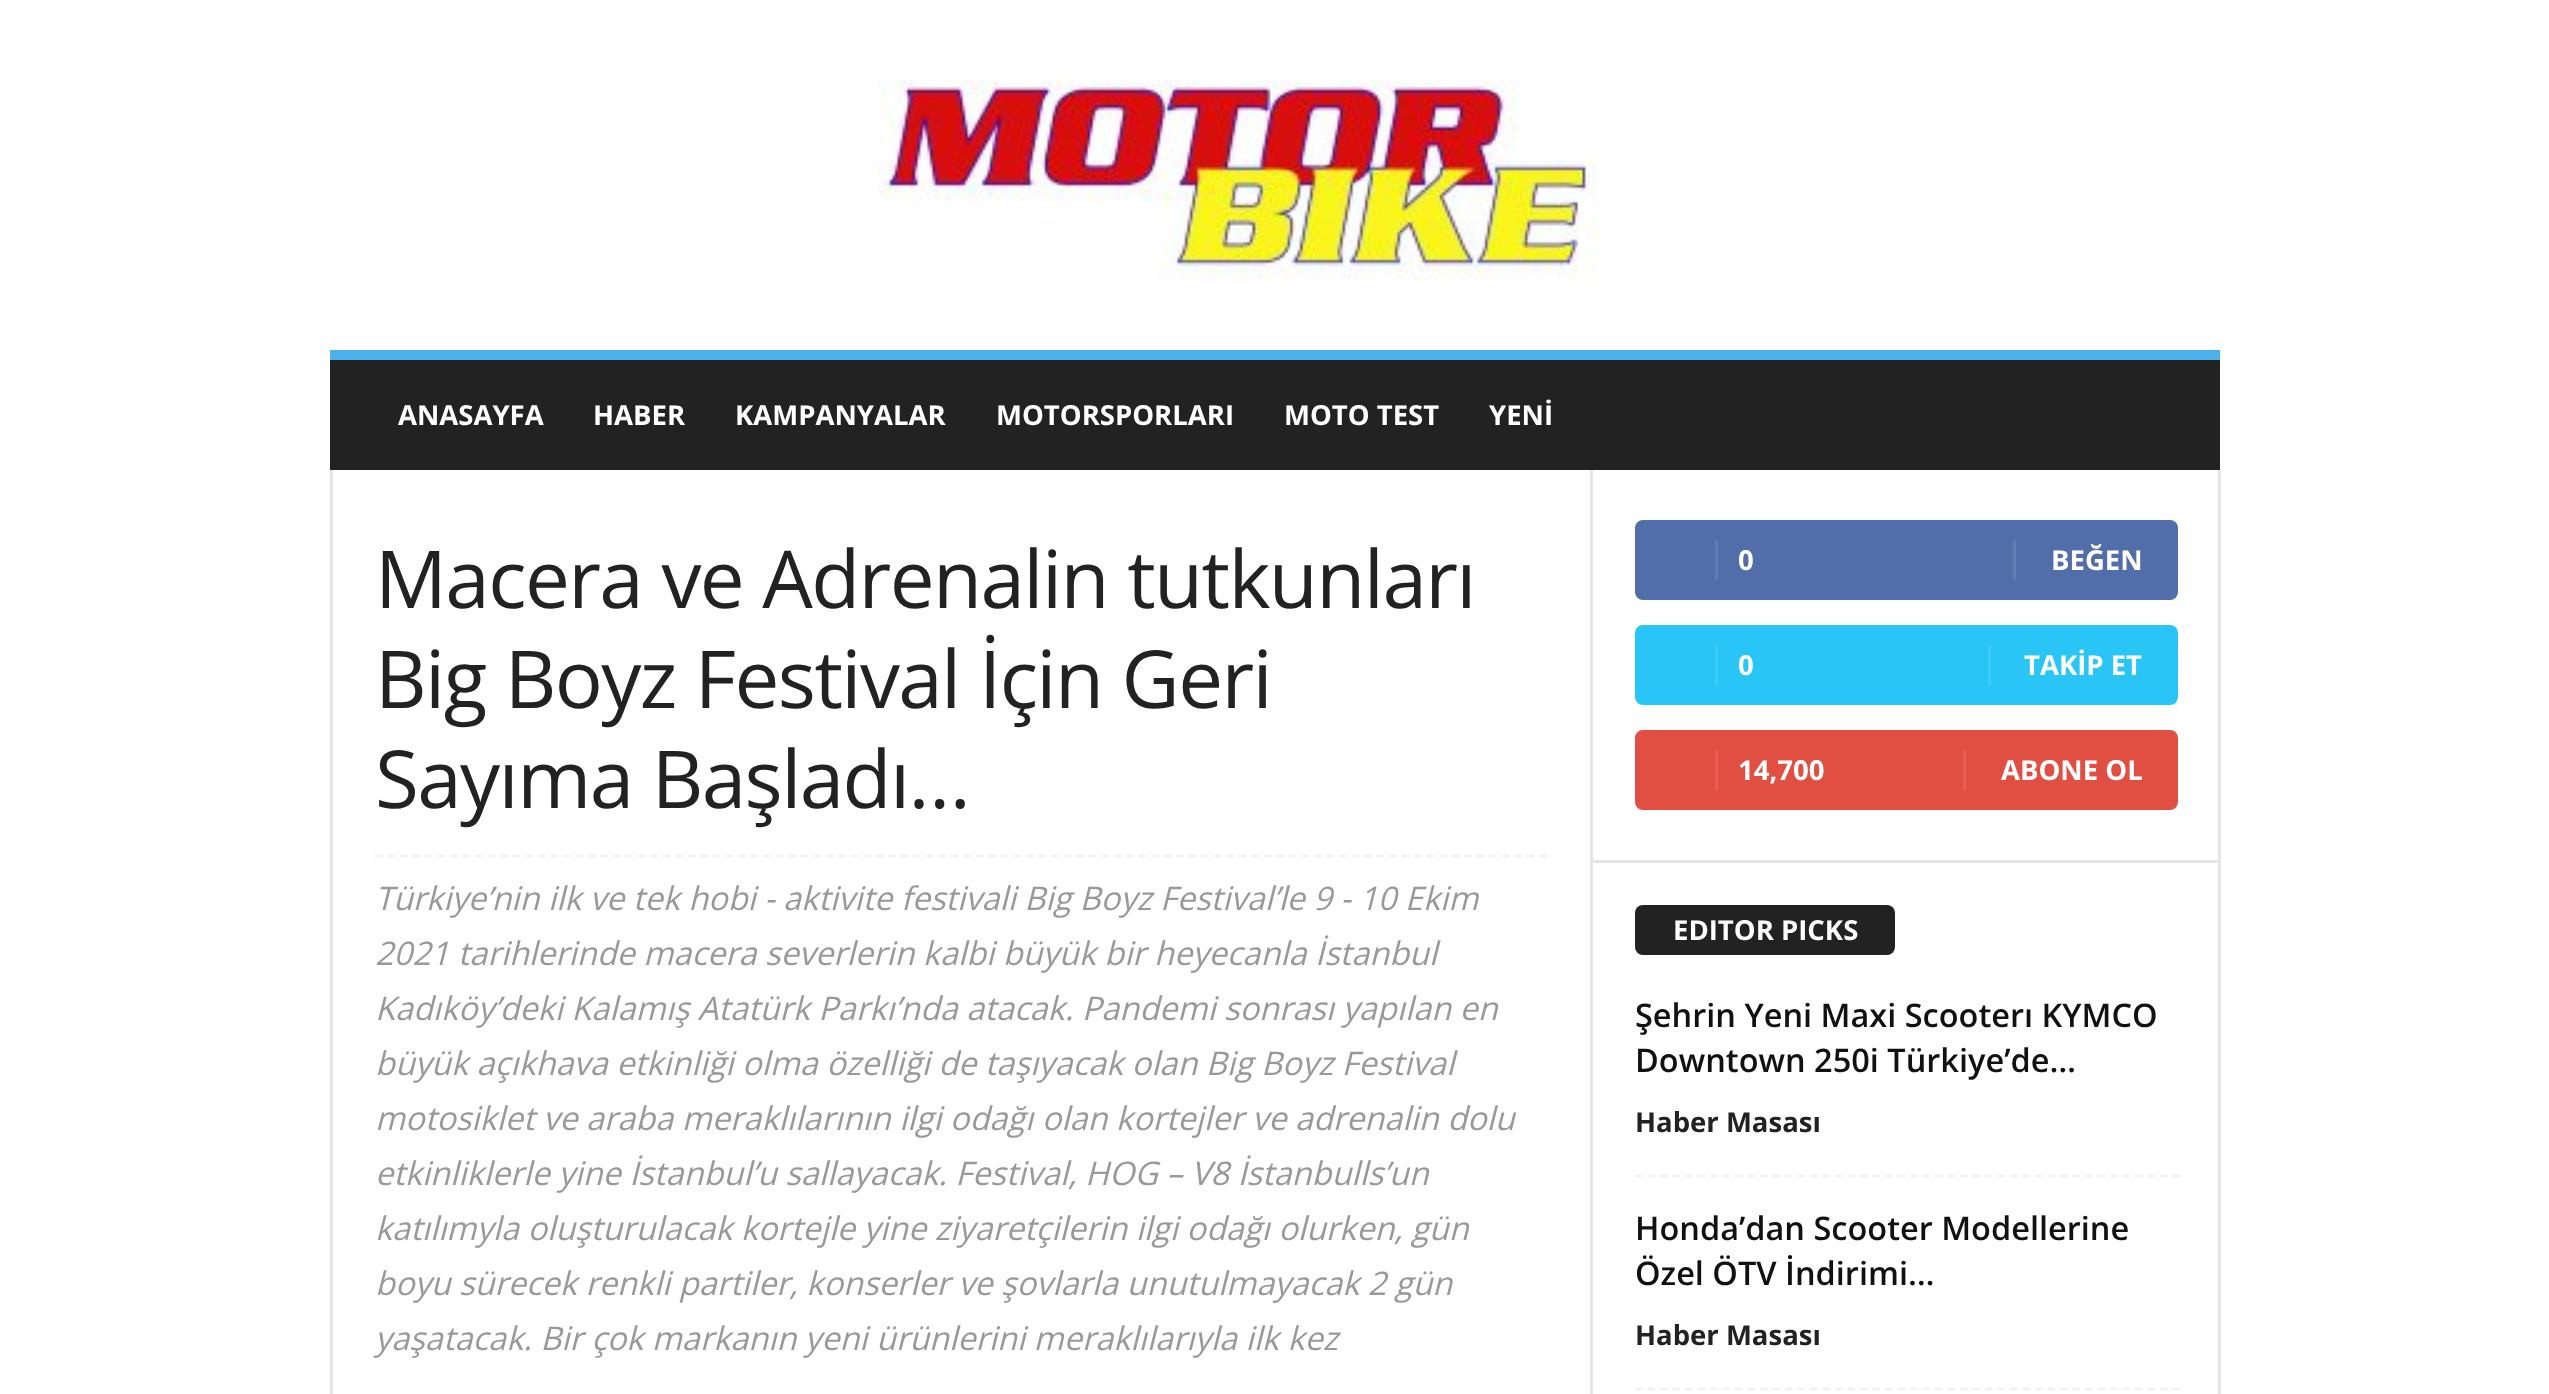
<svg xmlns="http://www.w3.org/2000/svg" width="2549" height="1394">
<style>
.a{font:bold 27.5px Open Sans;fill:#fff}
.b{font:80px Open Sans;letter-spacing:-1.6px;fill:#222}
.c{font:italic 32.5px Open Sans;fill:#999}
.d{font:600 32.5px Open Sans;fill:#111}
.e{font:bold 27.5px Open Sans;fill:#222}
</style>
<rect width="100%" height="100%" fill="#fff"/>
<image href="1.png" x="876" y="77" width="723" height="205"/>
<path fill="#222" d="M330 360h1890v110H330z"/>
<path fill="#4db2ec" d="M330 350h1890v10H330z"/>
<path fill="#e6e6e6" d="M330 470h3v924H330z"/>
<path fill="none" stroke="#f1f1f1" stroke-width="2.5" stroke-dasharray="7.5 5.02" d="M375 856h1172.5"/>
<path fill="#e6e6e6" d="M1590 470h3v924H1590z"/>
<rect fill="#516eab" x="1635" y="520" width="543" height="80" rx="8"/>
<path fill="#627db3" d="M1715 540h3v40H1715z"/>
<path fill="#627db3" d="M2013 540h3v40H2013z"/>
<rect fill="#29c5f6" x="1635" y="625" width="543" height="80" rx="8"/>
<path fill="#3ecbf7" d="M1715 645h3v40H1715z"/>
<path fill="#3ecbf7" d="M1988 645h3v40H1988z"/>
<rect fill="#e14e42" x="1635" y="730" width="543" height="80" rx="8"/>
<path fill="#e46055" d="M1715 750h3v40H1715z"/>
<path fill="#e46055" d="M1963 750h3v40H1963z"/>
<path fill="#e6e6e6" d="M2218 470h3v924H2218z"/>
<path fill="#e6e6e6" d="M1593 860h627v3H1593z"/>
<rect fill="#222" x="1635" y="905" width="260" height="50" rx="8"/>
<path fill="none" stroke="#f1f1f1" stroke-width="2.5" stroke-dasharray="7.5 5" d="M1635 1176h545"/>
<path fill="none" stroke="#f1f1f1" stroke-width="2.5" stroke-dasharray="7.5 5" d="M1635 1389h545"/>
<text class="a" x="398" y="425">ANASAYFA</text>
<text class="a" x="593" y="425">HABER</text>
<text class="a" x="735" y="425">KAMPANYALAR</text>
<text class="a" x="996" y="425">MOTORSPORLARI</text>
<text class="a" x="1284" y="425">MOTO TEST</text>
<text class="a" x="1489" y="425">YENİ</text>
<text class="b" x="375" y="608">Macera ve Adrenalin tutkunları</text>
<text class="b" x="375" y="708">Big Boyz Festival İçin Geri</text>
<text class="b" x="375" y="808">Sayıma Başladı…</text>
<text class="c" x="375" y="910">Türkiye’nin ilk ve tek hobi - aktivite festivali Big Boyz Festival’le 9 - 10 Ekim</text>
<text class="c" x="375" y="965">2021 tarihlerinde macera severlerin kalbi büyük bir heyecanla İstanbul</text>
<text class="c" x="375" y="1020">Kadıköy’deki Kalamış Atatürk Parkı’nda atacak. Pandemi sonrası yapılan en</text>
<text class="c" x="375" y="1075">büyük açıkhava etkinliği olma özelliği de taşıyacak olan Big Boyz Festival</text>
<text class="c" x="375" y="1130">motosiklet ve araba meraklılarının ilgi odağı olan kortejler ve adrenalin dolu</text>
<text class="c" x="375" y="1185">etkinliklerle yine İstanbul’u sallayacak. Festival, HOG – V8 İstanbulls’un</text>
<text class="c" x="375" y="1240">katılımyla oluşturulacak kortejle yine ziyaretçilerin ilgi odağı olurken, gün</text>
<text class="c" x="375" y="1295">boyu sürecek renkli partiler, konserler ve şovlarla unutulmayacak 2 gün</text>
<text class="c" x="375" y="1350">yaşatacak. Bir çok markanın yeni ürünlerini meraklılarıyla ilk kez</text>
<text class="a" x="1738" y="570">0</text>
<text class="a" x="2051" y="570">BEĞEN</text>
<text class="a" x="1738" y="675">0</text>
<text class="a" x="2024" y="675">TAKİP ET</text>
<text class="a" x="1738" y="780">14,700</text>
<text class="a" x="2001" y="780">ABONE OL</text>
<text class="a" x="1673" y="940">EDITOR PICKS</text>
<text class="d" x="1635" y="1027">Şehrin Yeni Maxi Scooterı KYMCO</text>
<text class="d" x="1635" y="1072">Downtown 250i Türkiye’de…</text>
<text class="e" x="1635" y="1132">Haber Masası</text>
<text class="d" x="1635" y="1240">Honda’dan Scooter Modellerine</text>
<text class="d" x="1635" y="1285">Özel ÖTV İndirimi…</text>
<text class="e" x="1635" y="1345">Haber Masası</text>
</svg>
